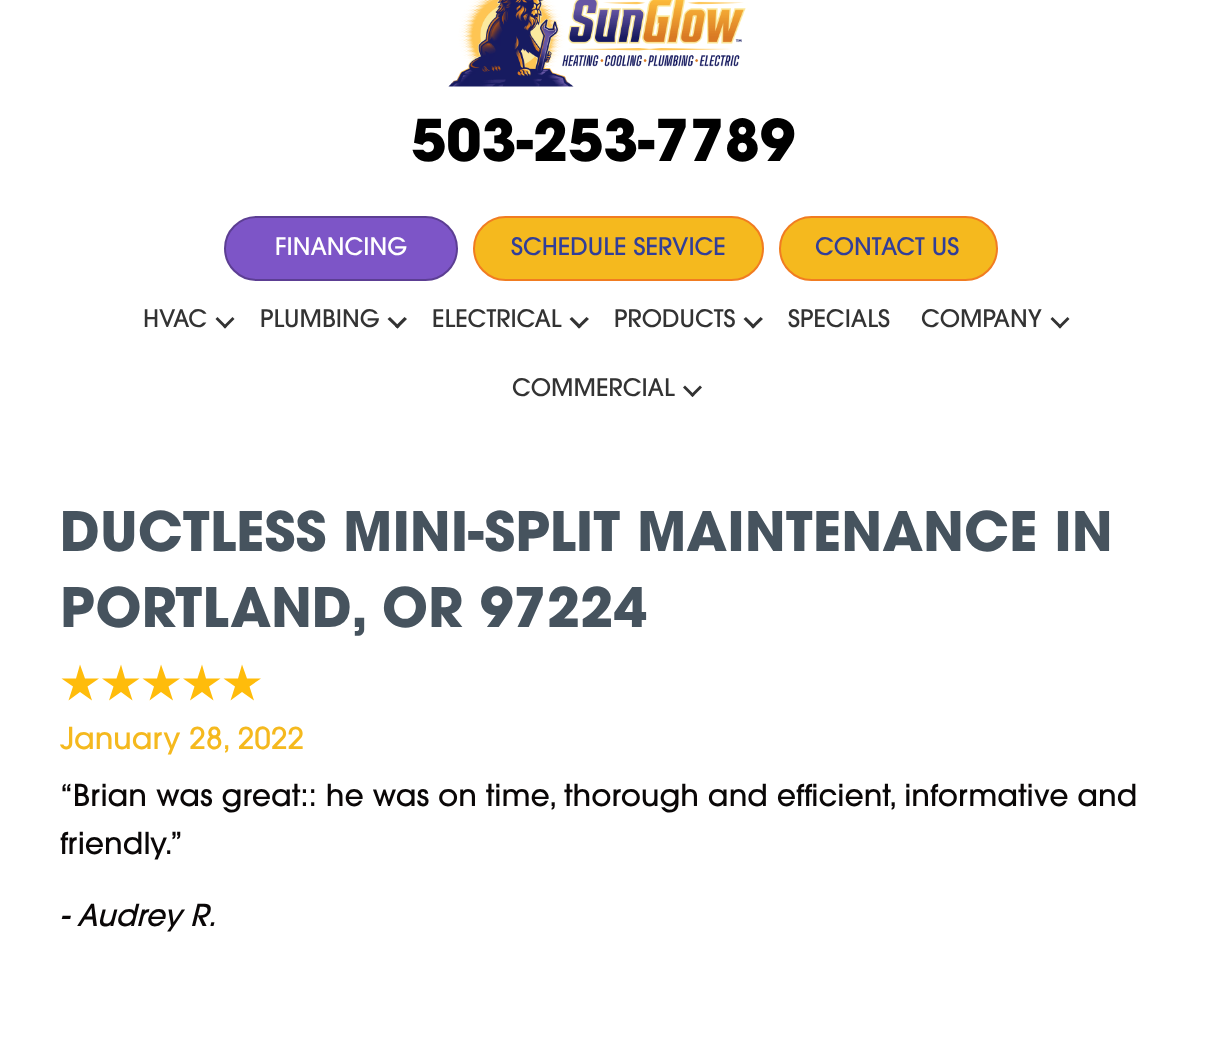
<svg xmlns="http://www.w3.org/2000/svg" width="1206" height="1040">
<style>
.a{font:bold 57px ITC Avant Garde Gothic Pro;fill:#000}
.b{font:500 24px ITC Avant Garde Gothic Pro;fill:#fff}
.c{font:500 24px ITC Avant Garde Gothic Pro;fill:#313e99}
.d{font:500 24px ITC Avant Garde Gothic Pro;fill:#333}
.e{font:bold 54px ITC Avant Garde Gothic Pro;fill:#46535e}
.f{font:500 30px ITC Avant Garde Gothic Pro;fill:#f5b91e}
.g{font:500 30px ITC Avant Garde Gothic Pro;fill:#0a0707}
.h{font:italic 500 30px ITC Avant Garde Gothic Pro;fill:#0a0707}
</style>
<rect width="100%" height="100%" fill="#fff"/>
<image href="1.png" x="448" y="0" width="298" height="87"/>
<rect fill="#7d55c7" stroke="#5c3e93" stroke-width="2" x="225" y="217" width="232" height="63" rx="31.5"/>
<rect fill="#f5b91e" stroke="#f17c21" stroke-width="2" x="474" y="217" width="289" height="63" rx="31.5"/>
<rect fill="#f5b91e" stroke="#f17c21" stroke-width="2" x="780" y="217" width="217" height="63" rx="31.5"/>
<path fill="#333" d="M232.5 317l2 2l-9.5 9.5l-2-2z"/>
<path fill="#333" d="M217.5 317l9.5 9.5l-2 2l-9.5-9.5z"/>
<path fill="#333" d="M404.5 317l2.5 2l-9.5 9.5l-2.5-2z"/>
<path fill="#333" d="M390 317l9.5 9.5l-2 2l-10-9.5z"/>
<path fill="#333" d="M586.5 317l2.5 2l-10 9.5l-2-2z"/>
<path fill="#333" d="M572 317l9.5 9.5l-2.5 2l-9.5-9.5z"/>
<path fill="#333" d="M760.5 317l2.5 2l-10 9.5l-2-2z"/>
<path fill="#333" d="M746 317l9.5 9.5l-2.5 2l-9.5-9.5z"/>
<path fill="#333" d="M1067.5 317l2 2l-9.5 9.5l-2-2z"/>
<path fill="#333" d="M1052.5 317l9.5 9.5l-2 2l-9.5-9.5z"/>
<path fill="#333" d="M700 385.5l2 2l-9.5 9.5l-2-2z"/>
<path fill="#333" d="M685 385.5l9.5 9.5l-2 2l-9.5-9.5z"/>
<path fill="#ffbc0b" d="M80 664.5l5 14l-5-14l5 14h14l-11.5 8l4.5 14l-12-8.5l-11.5 8.5l4.5-14l-11.5-8h14.5z"/>
<path fill="#ffbc0b" d="M121 664.5l4 14l-4-14l4 14h14.5l-11.5 8l4.5 14l-11.5-8.5l-12 8.5l4.5-14l-11.5-8h14.5z"/>
<path fill="#ffbc0b" d="M161 664.5l5 14l-5-14l5 14h14l-11.5 8l4.5 14l-12-8.5l-11.5 8.5l4.5-14l-11.5-8h14.5z"/>
<path fill="#ffbc0b" d="M202 664.5l4 14l-4-14l4 14h14.5l-11.5 8l4.5 14l-11.5-8.5l-12 8.5l4.5-14l-11.5-8h14.5z"/>
<path fill="#ffbc0b" d="M242 664.5l5 14l-5-14l5 14h14l-11.5 8l4.5 14l-12-8.5l-11.5 8.5l4.5-14l-11.5-8h14.5z"/>
<text class="a" x="411" y="161">503-253-7789</text>
<text class="b" x="275" y="255">FINANCING</text>
<text class="c" x="511" y="255">SCHEDULE SERVICE</text>
<text class="c" x="815" y="255">CONTACT US</text>
<text class="d" x="143" y="327">HVAC</text>
<text class="d" x="260" y="327">PLUMBING</text>
<text class="d" x="432" y="327">ELECTRICAL</text>
<text class="d" x="614" y="327">PRODUCTS</text>
<text class="d" x="788" y="327">SPECIALS</text>
<text class="d" x="921" y="327">COMPANY</text>
<text class="d" x="512" y="396">COMMERCIAL</text>
<text class="e" x="60" y="551">DUCTLESS MINI-SPLIT MAINTENANCE IN</text>
<text class="e" x="60" y="627">PORTLAND, OR 97224</text>
<text class="f" x="60" y="749">January 28, 2022</text>
<text class="g" x="60" y="806">“Brian was great:: he was on time, thorough and efficient, informative and</text>
<text class="g" x="60" y="854">friendly.”</text>
<text class="h" x="60" y="926">- Audrey R.</text>
</svg>
